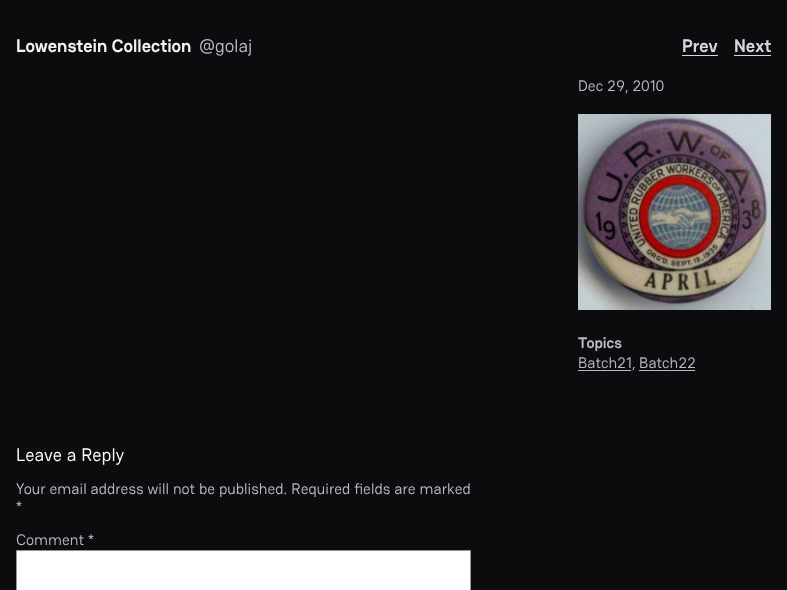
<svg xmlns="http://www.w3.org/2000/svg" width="787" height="590">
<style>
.a{font:bold 18.1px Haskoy;fill:#f3f1f1}
.b{font:18.1px Haskoy;fill:#babac4}
.c{font:bold 18.1px Haskoy;fill:#d6d6dc}
.d{font:15.25px Haskoy;fill:#babac4}
.e{font:bold 15.25px Haskoy;fill:#babac4}
.f{font:18.1px Haskoy;fill:#fff}
</style>
<rect width="100%" height="100%" fill="#0c0c0e"/>
<path fill="#d6d6dc" d="M682 55h36v1H682z"/>
<path fill="#d6d6dc" d="M734 55h37v1H734z"/>
<image href="1.png" x="578" y="114" width="193" height="196"/>
<path fill="#babac4" d="M578 370h53v1H578z"/>
<path fill="#babac4" d="M639 370h56v1H639z"/>
<path fill="#fff" stroke="#949494" d="M16.5 550.5h454v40H16.5z"/>
<text class="a" x="16" y="52">Lowenstein Collection</text>
<text class="b" x="199" y="52">@golaj</text>
<text class="c" x="682" y="52">Prev</text>
<text class="c" x="734" y="52">Next</text>
<text class="d" x="578" y="91">Dec 29, 2010</text>
<text class="e" x="578" y="348">Topics</text>
<text class="d" x="578" y="368">Batch21, Batch22</text>
<text class="f" x="16" y="461">Leave a Reply</text>
<text class="d" x="16" y="494">Your email address will not be published. Required fields are marked</text>
<text class="d" x="16" y="512">*</text>
<text class="d" x="16" y="545">Comment *</text>
</svg>
